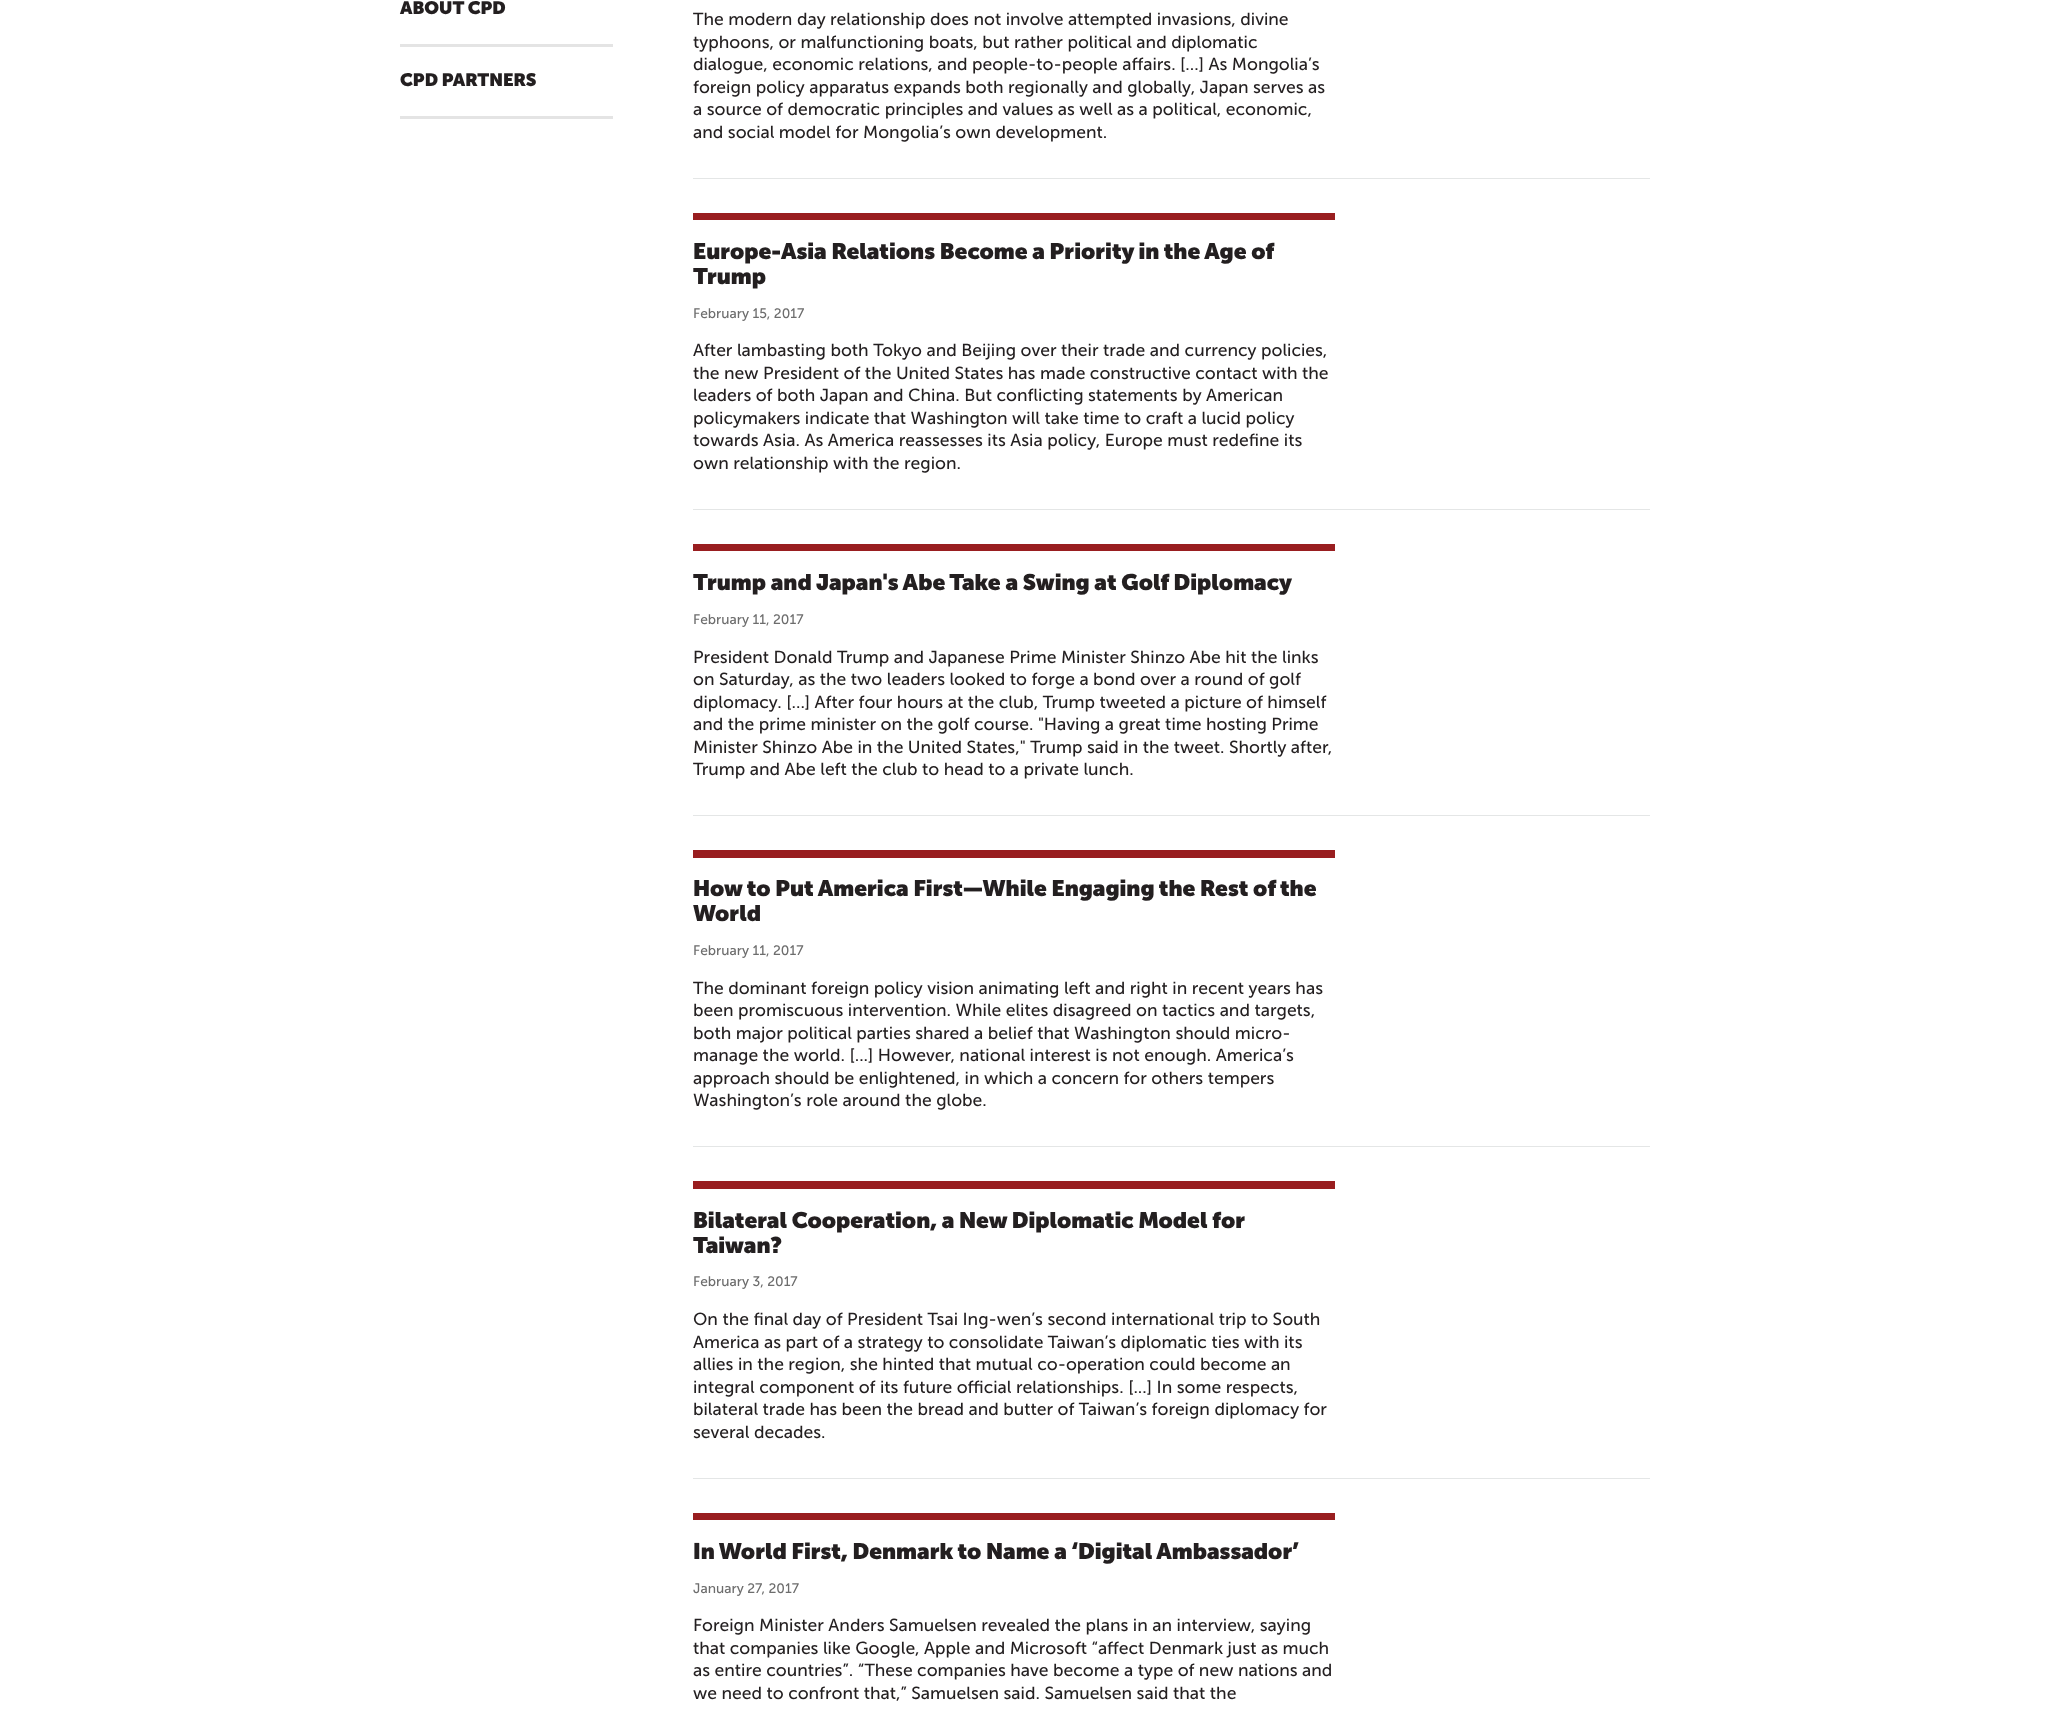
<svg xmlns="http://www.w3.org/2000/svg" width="2049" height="1710">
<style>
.a{font:900 18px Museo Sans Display;fill:#231f20}
.b{font:17.5px Museo Sans;fill:#231f20}
.c{font:900 22.5px Museo Sans Display;fill:#231f20}
.d{font:13.75px Museo Sans;fill:#6d6d6d}
</style>
<rect width="100%" height="100%" fill="#fff"/>
<path fill="#e4e4e4" d="M400 44h213v3H400z"/>
<path fill="#e4e4e4" d="M400 116h213v3H400z"/>
<path fill="#e4e6e6" d="M693 178h957v1H693z"/>
<path fill="#e4e6e6" d="M693 509h957v1H693z"/>
<path fill="#991e20" d="M693 213h642v7H693z"/>
<path fill="#e4e6e6" d="M693 815h957v1H693z"/>
<path fill="#991e20" d="M693 544h642v7H693z"/>
<path fill="#e4e6e6" d="M693 1146h957v1H693z"/>
<path fill="#991e20" d="M693 850h642v8H693z"/>
<path fill="#e4e6e6" d="M693 1478h957v1H693z"/>
<path fill="#991e20" d="M693 1181h642v8H693z"/>
<path fill="#991e20" d="M693 1513h642v7H693z"/>
<text class="a" x="400" y="14">ABOUT CPD</text>
<text class="a" x="400" y="86">CPD PARTNERS</text>
<text class="b" x="693" y="25">The modern day relationship does not involve attempted invasions, divine</text>
<text class="b" x="693" y="48">typhoons, or malfunctioning boats, but rather political and diplomatic</text>
<text class="b" x="693" y="70">dialogue, economic relations, and people-to-people affairs. [...] As Mongolia’s</text>
<text class="b" x="693" y="93">foreign policy apparatus expands both regionally and globally, Japan serves as</text>
<text class="b" x="693" y="115">a source of democratic principles and values as well as a political, economic,</text>
<text class="b" x="693" y="138">and social model for Mongolia’s own development.</text>
<text class="c" x="693" y="259">Europe-Asia Relations Become a Priority in the Age of</text>
<text class="c" x="693" y="284">Trump</text>
<text class="d" x="693" y="318">February 15, 2017</text>
<text class="b" x="693" y="356">After lambasting both Tokyo and Beijing over their trade and currency policies,</text>
<text class="b" x="693" y="379">the new President of the United States has made constructive contact with the</text>
<text class="b" x="693" y="401">leaders of both Japan and China. But conflicting statements by American</text>
<text class="b" x="693" y="424">policymakers indicate that Washington will take time to craft a lucid policy</text>
<text class="b" x="693" y="446">towards Asia. As America reassesses its Asia policy, Europe must redefine its</text>
<text class="b" x="693" y="469">own relationship with the region.</text>
<text class="c" x="693" y="590">Trump and Japan's Abe Take a Swing at Golf Diplomacy</text>
<text class="d" x="693" y="624">February 11, 2017</text>
<text class="b" x="693" y="663">President Donald Trump and Japanese Prime Minister Shinzo Abe hit the links</text>
<text class="b" x="693" y="685">on Saturday, as the two leaders looked to forge a bond over a round of golf</text>
<text class="b" x="693" y="708">diplomacy. [...] After four hours at the club, Trump tweeted a picture of himself</text>
<text class="b" x="693" y="730">and the prime minister on the golf course. "Having a great time hosting Prime</text>
<text class="b" x="693" y="753">Minister Shinzo Abe in the United States," Trump said in the tweet. Shortly after,</text>
<text class="b" x="693" y="775">Trump and Abe left the club to head to a private lunch.</text>
<text class="c" x="693" y="896">How to Put America First—While Engaging the Rest of the</text>
<text class="c" x="693" y="921">World</text>
<text class="d" x="693" y="955">February 11, 2017</text>
<text class="b" x="693" y="994">The dominant foreign policy vision animating left and right in recent years has</text>
<text class="b" x="693" y="1016">been promiscuous intervention. While elites disagreed on tactics and targets,</text>
<text class="b" x="693" y="1039">both major political parties shared a belief that Washington should micro-</text>
<text class="b" x="693" y="1061">manage the world. [...] However, national interest is not enough. America’s</text>
<text class="b" x="693" y="1084">approach should be enlightened, in which a concern for others tempers</text>
<text class="b" x="693" y="1106">Washington’s role around the globe.</text>
<text class="c" x="693" y="1228">Bilateral Cooperation, a New Diplomatic Model for</text>
<text class="c" x="693" y="1253">Taiwan?</text>
<text class="d" x="693" y="1286">February 3, 2017</text>
<text class="b" x="693" y="1325">On the final day of President Tsai Ing-wen’s second international trip to South</text>
<text class="b" x="693" y="1348">America as part of a strategy to consolidate Taiwan’s diplomatic ties with its</text>
<text class="b" x="693" y="1370">allies in the region, she hinted that mutual co-operation could become an</text>
<text class="b" x="693" y="1393">integral component of its future official relationships. [...] In some respects,</text>
<text class="b" x="693" y="1415">bilateral trade has been the bread and butter of Taiwan’s foreign diplomacy for</text>
<text class="b" x="693" y="1438">several decades.</text>
<text class="c" x="693" y="1559">In World First, Denmark to Name a ‘Digital Ambassador’</text>
<text class="d" x="693" y="1593">January 27, 2017</text>
<text class="b" x="693" y="1631">Foreign Minister Anders Samuelsen revealed the plans in an interview, saying</text>
<text class="b" x="693" y="1654">that companies like Google, Apple and Microsoft “affect Denmark just as much</text>
<text class="b" x="693" y="1676">as entire countries”. “These companies have become a type of new nations and</text>
<text class="b" x="693" y="1699">we need to confront that,” Samuelsen said. Samuelsen said that the</text>
</svg>
